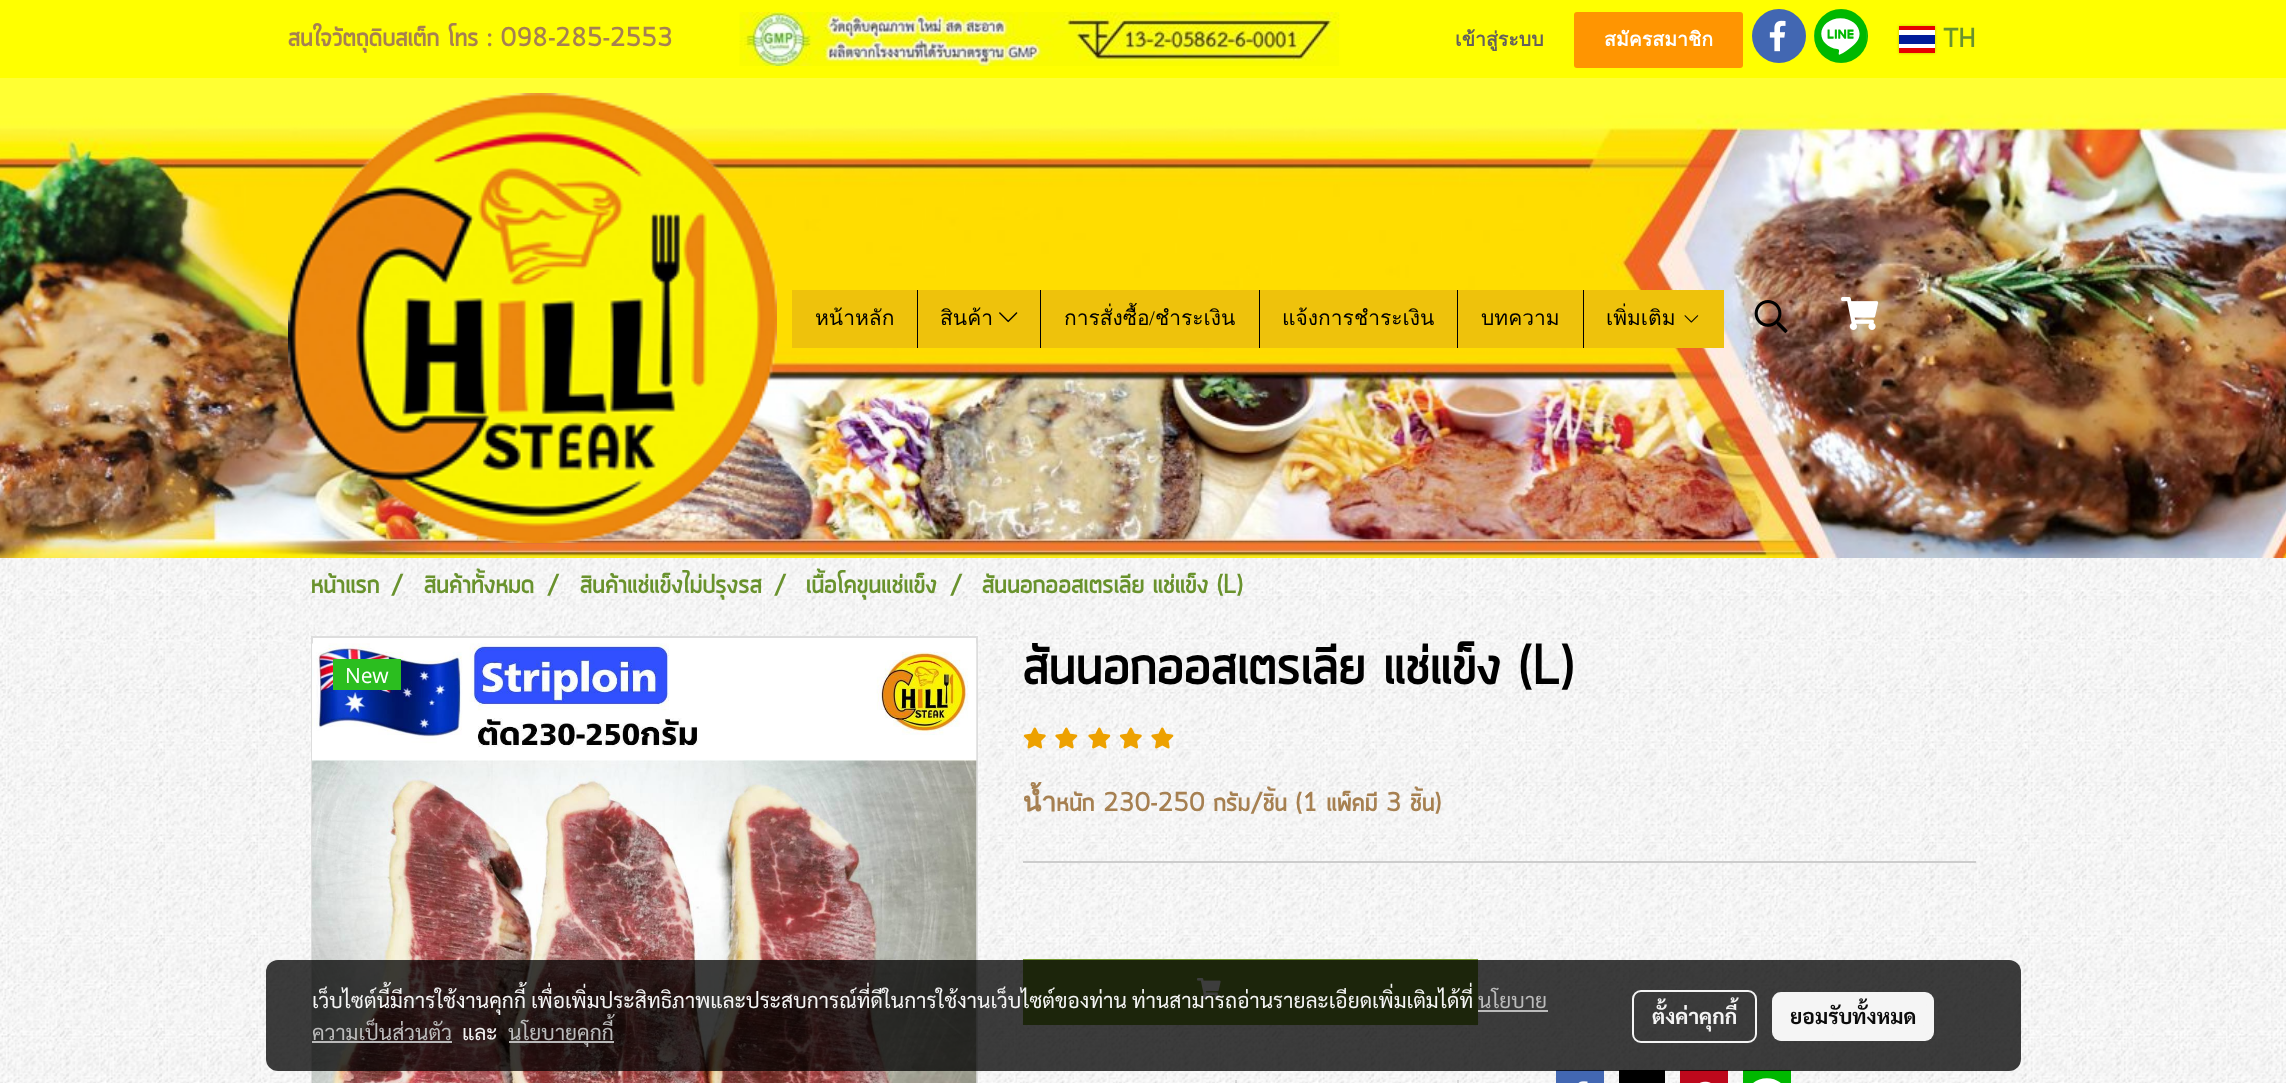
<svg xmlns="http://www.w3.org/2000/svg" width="2286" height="1083">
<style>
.a{font:bold 27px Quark;fill:#a68051}
.b{font:bold 19.5px Loma;fill:#65605c}
.c{font:bold 19.5px Loma;fill:#fff}
.d{font:bold 27px Quark;fill:#69922d}
.e{font:21px Loma;fill:#000}
.f{font:21px Liberation Serif;fill:#000}
.g{font:21px Open Sans;fill:#fff}
.h{font:bold 57px Quark;fill:#000}
.i{font:21px Sarabun;fill:#f4f4f4}
.j{font:21px Sarabun;fill:#bbb}
.k{font:bold 21px Sarabun;fill:#f4f4f4}
.l{font:bold 21px Sarabun;fill:#0c0c0c}
</style>
<rect width="100%" height="100%" fill="#fff"/>
<image href="1.png" x="0" y="558" width="2286" height="525"/>
<image href="2.png" x="0" y="78" width="2286" height="480"/>
<path fill="#ff0" d="M0 0h2286v78H0z"/>
<image href="3.png" x="739" y="12" width="601" height="54"/>
<rect fill="#ff9501" x="1574" y="12" width="169" height="56" rx="3"/>
<circle fill="#4267b2" cx="1779" cy="36" r="27"/>
<image href="4.png" x="1769" y="20" width="17" height="32"/>
<circle fill="#00b800" cx="1841" cy="36" r="27"/>
<image href="5.png" x="1814" y="9" width="53" height="54"/>
<path fill="#00000040" filter="blur(1.5px)" d="M1899 26h36v27H1899z"/>
<path fill="#fff" d="M1899 30h36v18H1899z"/>
<path fill="#001b9a" d="M1899 35h36v9H1899z"/>
<path fill="#e70000" d="M1899 26h36v4H1899z"/>
<path fill="#e70000" d="M1899 48h36v5H1899z"/>
<image href="6.png" x="288" y="93" width="489" height="450"/>
<path fill="#000" d="M917 290h1v58H917z"/>
<path fill="#eec20c" d="M792 290h125v58H792z"/>
<path fill="#000" d="M1040 290h1v58H1040z"/>
<path fill="#eec20c" d="M918 290h122v58H918z"/>
<image href="7.png" x="999" y="312" width="19" height="11"/>
<path fill="#000" d="M1259 290h1v58H1259z"/>
<path fill="#eec20c" d="M1041 290h218v58H1041z"/>
<path fill="#000" d="M1457 290h1v58H1457z"/>
<path fill="#eec20c" d="M1260 290h197v58H1260z"/>
<path fill="#000" d="M1583 290h1v58H1583z"/>
<path fill="#eec20c" d="M1458 290h125v58H1458z"/>
<path fill="#eec20c" d="M1584 290h140v58H1584z"/>
<image href="8.png" x="1684" y="315" width="15" height="8"/>
<image href="9.png" x="1754" y="300" width="34" height="33"/>
<image href="10.png" x="1841" y="297" width="38" height="33"/>
<path fill="#fff" d="M313 638h663v6H313z"/>
<path fill="none" stroke="#ddd" stroke-width="2" d="M312 637h665v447H312z"/>
<image href="11.png" x="312" y="643" width="665" height="440"/>
<path fill="#2bbe1f" d="M333 659h68v31H333z"/>
<image href="12.png" x="1023" y="727" width="23" height="22"/>
<image href="13.png" x="1055" y="727" width="23" height="22"/>
<image href="14.png" x="1088" y="727" width="23" height="22"/>
<image href="15.png" x="1119" y="727" width="23" height="22"/>
<image href="16.png" x="1151" y="727" width="23" height="22"/>
<path fill="#ccc" d="M1023 861h953v2H1023z"/>
<path fill="#75992e" d="M1023 959h455v66H1023z"/>
<image href="17.png" x="1197" y="978" width="24" height="21"/>
<path fill="#00000021" d="M1235 1080h2v3H1235z"/>
<path fill="#00000021" d="M1457 1080h2v3H1457z"/>
<path fill="#4267b2" d="M1556 1070h48v13H1556z"/>
<image href="18.png" x="1578" y="1081" width="10" height="2"/>
<path fill="#000" d="M1619 1070h46v13H1619z"/>
<path fill="#bd081c" d="M1680 1070h48v13H1680z"/>
<image href="19.png" x="1700" y="1081" width="11" height="2"/>
<path fill="#00b800" d="M1743 1070h48v13H1743z"/>
<image href="20.png" x="1753" y="1078" width="28" height="5"/>
<rect fill="#000000c2" x="266" y="960" width="1755" height="111" rx="12"/>
<path fill="#c2c2c2f2" d="M1478 1010h70v2H1478z"/>
<path fill="#c2c2c2f2" d="M312 1041h140v2H312z"/>
<path fill="#c2c2c2f2" d="M509 1041h105v2H509z"/>
<rect fill="none" stroke="#fffffff2" stroke-width="2" x="1633" y="991" width="123" height="51" rx="8"/>
<rect fill="#fffffff2" x="1772" y="992" width="162" height="49" rx="9"/>
<text class="a" x="288" y="46">สนใจวัตถุดิบสเต็ก โทร : 098-285-2553</text>
<text class="b" x="1455" y="46">เข้าสู่ระบบ</text>
<text class="c" x="1604" y="46">สมัครสมาชิก</text>
<text class="d" x="1943" y="47">TH</text>
<text class="e" x="815" y="325">หน้าหลัก</text>
<text class="e" x="940" y="325">สินค้า</text>
<text class="e" x="1064" y="325">การสั่งซื้อ</text>
<text class="f" x="1149" y="325">/</text>
<text class="e" x="1155" y="325">ชำระเงิน</text>
<text class="e" x="1282" y="325">แจ้งการชำระเงิน</text>
<text class="e" x="1481" y="325">บทความ</text>
<text class="e" x="1606" y="325">เพิ่มเติม</text>
<text class="d" x="311" y="593">หน้าแรก</text>
<text class="d" x="391" y="593">/</text>
<text class="d" x="424" y="593">สินค้าทั้งหมด</text>
<text class="d" x="547" y="593">/</text>
<text class="d" x="580" y="593">สินค้าแช่แข็งไม่ปรุงรส</text>
<text class="d" x="774" y="593">/</text>
<text class="d" x="806" y="593">เนื้อโคขุนแช่แข็ง</text>
<text class="d" x="950" y="593">/</text>
<text class="d" x="982" y="593">สันนอกออสเตรเลีย แช่แข็ง (L)</text>
<text class="g" x="345" y="683">New</text>
<text class="h" x="1023" y="684">สันนอกออสเตรเลีย แช่แข็ง (L)</text>
<text class="a" x="1023" y="811">น้ำหนัก 230-250 กรัม/ชิ้น (1 แพ็คมี 3 ชิ้น)</text>
<text class="i" x="312" y="1008">เว็บไซต์นี้มีการใช้งานคุกกี้ เพื่อเพิ่มประสิทธิภาพและประสบการณ์ที่ดีในการใช้งานเว็บไซต์ของท่าน</text>
<text class="i" x="1132" y="1008">ท่านสามารถอ่านรายละเอียดเพิ่มเติมได้ที่</text>
<text class="j" x="1478" y="1008">นโยบาย</text>
<text class="j" x="312" y="1040">ความเป็นส่วนตัว</text>
<text class="i" x="462" y="1040">และ</text>
<text class="j" x="508" y="1040">นโยบายคุกกี้</text>
<text class="k" x="1652" y="1024">ตั้งค่าคุกกี้</text>
<text class="l" x="1790" y="1024">ยอมรับทั้งหมด</text>
</svg>
